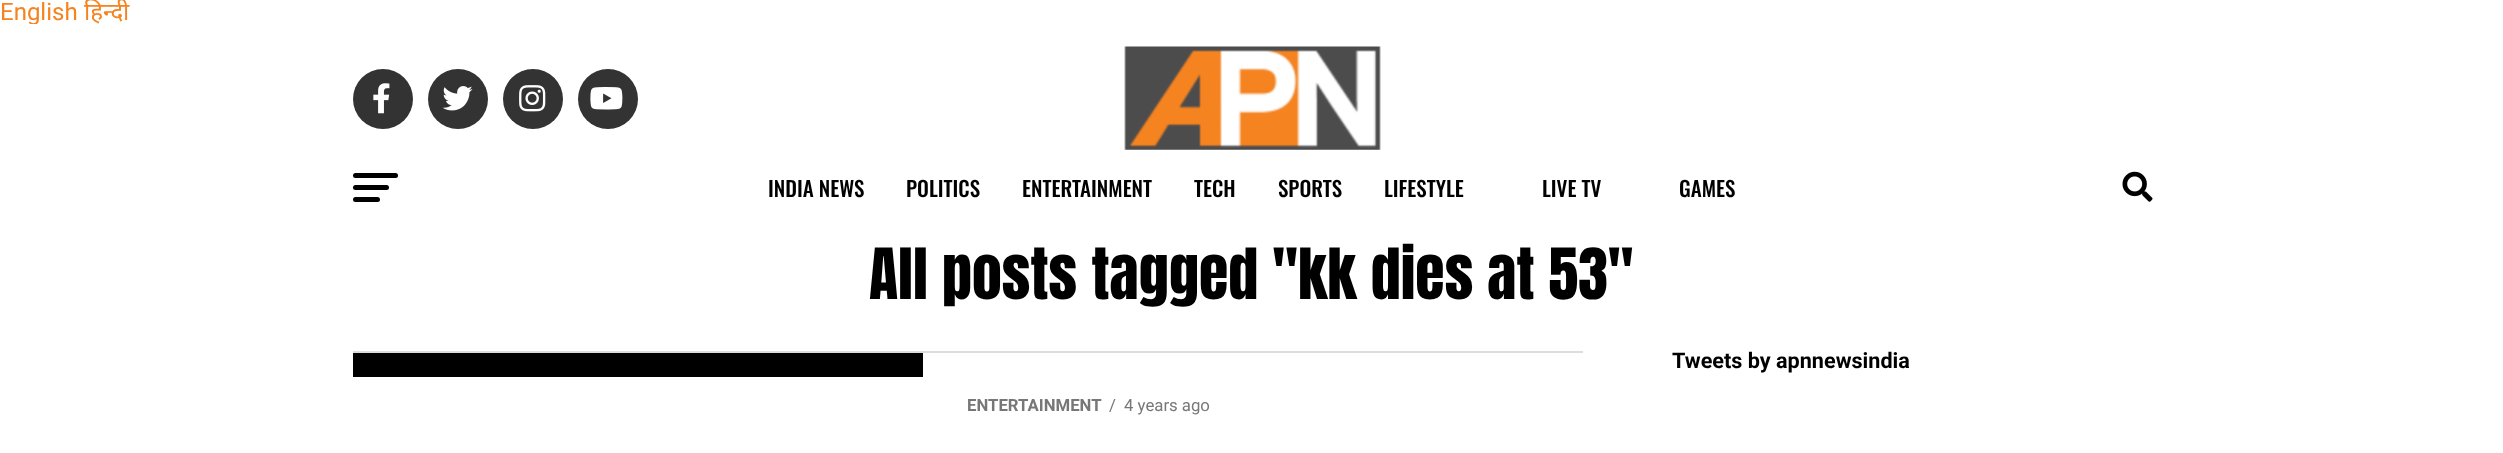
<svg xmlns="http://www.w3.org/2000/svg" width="2503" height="453">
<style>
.a{font:24px Roboto;fill:#f58320}
.b{font:24px Noto Sans;fill:#f58320}
.c{font:500 21px Oswald;fill:#000}
.d{font:60px Anton;fill:#000}
.e{font:bold 21.6px Roboto;fill:#000}
.f{font:bold 16.75px Roboto;fill:#777}
.g{font:16.75px Roboto;fill:#777}
</style>
<rect width="100%" height="100%" fill="#fff"/>
<circle fill="#333" cx="383" cy="99" r="30"/>
<image href="1.png" x="373" y="83" width="17" height="31"/>
<circle fill="#333" cx="458" cy="99" r="30"/>
<image href="2.png" x="442" y="86" width="31" height="25"/>
<circle fill="#333" cx="533" cy="99" r="30"/>
<image href="3.png" x="519" y="85" width="27" height="27"/>
<circle fill="#333" cx="608" cy="99" r="30"/>
<image href="4.png" x="590" y="87" width="33" height="23"/>
<image href="5.png" x="1124" y="46" width="257" height="104"/>
<rect fill="#000" x="353" y="173" width="45" height="5" rx="2.5"/>
<rect fill="#000" x="353" y="185" width="36" height="5" rx="2.5"/>
<rect fill="#000" x="353" y="197" width="27" height="5" rx="2.5"/>
<image href="6.png" x="2122" y="171" width="31" height="31"/>
<path fill="#ddd" d="M353 351h1230v2H353z"/>
<path fill="#000" d="M353 353h570v24H353z"/>
<text class="a" x="0" y="20">English</text>
<text class="b" x="84" y="20">हिन्दी</text>
<path fill="#fff" d="M30 24h7v1H30z"/>
<text class="c" x="768" y="197">INDIA NEWS</text>
<text class="c" x="906" y="197">POLITICS</text>
<text class="c" x="1022" y="197">ENTERTAINMENT</text>
<text class="c" x="1194" y="197">TECH</text>
<text class="c" x="1278" y="197">SPORTS</text>
<text class="c" x="1384" y="197">LIFESTYLE</text>
<text class="c" x="1542" y="197">LIVE TV</text>
<text class="c" x="1679" y="197">GAMES</text>
<text class="d" x="869" y="299">All posts tagged "kk dies at 53"</text>
<text class="e" x="1672" y="368">Tweets by apnnewsindia</text>
<text class="f" x="967" y="411">ENTERTAINMENT</text>
<text class="g" x="1109" y="411">/</text>
<text class="g" x="1124" y="411">4 years ago</text>
</svg>
